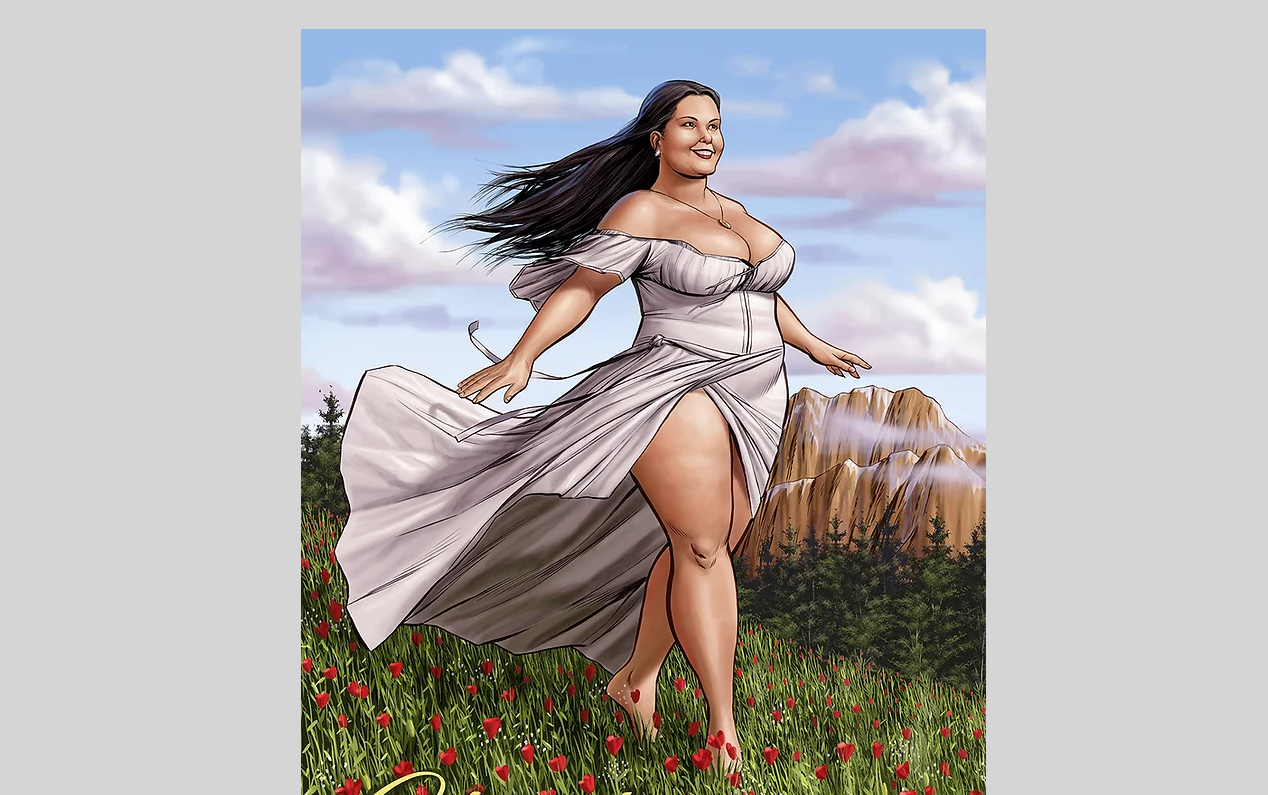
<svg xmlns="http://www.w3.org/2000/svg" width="1268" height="795">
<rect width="100%" height="100%" fill="#d5d5d5"/>
<image href="1.png" x="301" y="29" width="685" height="766"/>
</svg>
